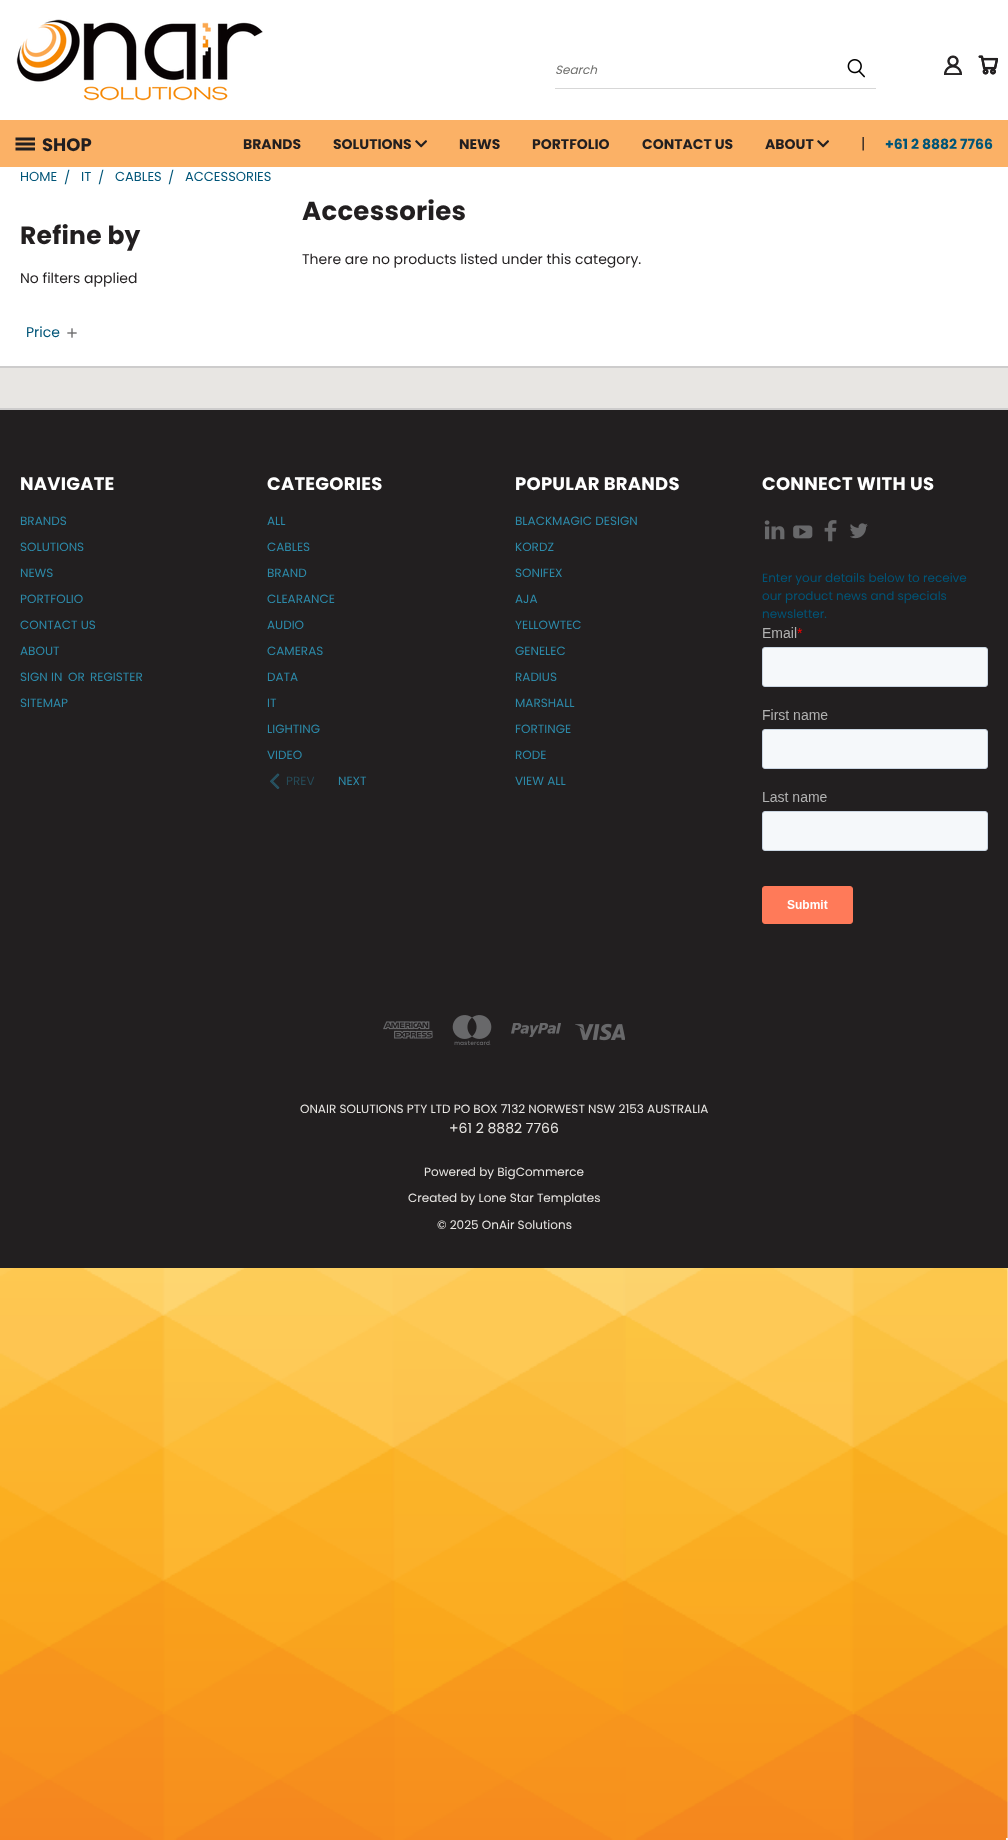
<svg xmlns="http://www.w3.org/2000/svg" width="1008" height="1840">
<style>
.a{font:italic 12px Poppins;fill:#70706e}
.b{font:bold 18px Poppins;fill:#221f20}
.c{font:bold 14px Poppins;fill:#221f20}
.d{font:15px Poppins;fill:#221f20}
.e{font:bold 14px Poppins;fill:#005578}
.f{font:13px Poppins;fill:#005578}
.g{font:bold 25px Poppins;letter-spacing:0.25px;fill:#221f20}
.h{font:14px Poppins;fill:#221f20}
.i{font:14px Poppins;fill:#005578}
.j{font:bold 26px Poppins;letter-spacing:0.25px;fill:#221f20}
.k{font:bold 18px Poppins;letter-spacing:0.25px;fill:#fff}
.l{font:12px Poppins;fill:#2d8aa9}
.m{font:12px Poppins;fill:#264a57}
.n{font:12px Poppins;fill:#005578}
.o{font:12px Poppins;fill:#e8e6e3}
.p{font:14px Poppins;fill:#e8e6e3}
</style>
<rect width="100%" height="100%" fill="#fff"/>
<image href="1.png" x="0" y="1268" width="1008" height="572"/>
<image href="2.png" x="16" y="19" width="247" height="82"/>
<path fill="#d7d7d7" d="M555 88h321v1H555z"/>
<image href="3.png" x="847" y="59" width="18" height="19"/>
<image href="4.png" x="944" y="55" width="18" height="20"/>
<image href="5.png" x="978" y="55" width="20" height="20"/>
<path fill="#fbb166" d="M0 120h1008v47H0z"/>
<image href="6.png" x="15" y="137" width="20" height="14"/>
<image href="7.png" x="415" y="140" width="12" height="8"/>
<image href="7.png" x="817" y="140" width="12" height="8"/>
<image href="8.png" x="67" y="328" width="10" height="10"/>
<path fill="#e8e6e3" d="M0 368h1008v40H0z"/>
<path fill="#cdcccc" d="M0 366h1008v2H0z"/>
<path fill="#221f20" d="M0 410h1008v858H0z"/>
<path fill="#cdcccc" d="M0 408h1008v2H0z"/>
<image href="9.png" x="270" y="773" width="10" height="16"/>
<image href="10.png" x="764" y="520" width="21" height="20"/>
<image href="11.png" x="793" y="525" width="20" height="14"/>
<image href="12.png" x="824" y="520" width="13" height="22"/>
<image href="13.png" x="850" y="523" width="18" height="16"/>
<image href="14.png" x="762" y="627" width="226" height="297"/>
<image href="15.png" x="383" y="1021" width="50" height="18"/>
<image href="16.png" x="452" y="1015" width="40" height="30"/>
<image href="17.png" x="511" y="1023" width="50" height="14"/>
<image href="18.png" x="575" y="1023" width="50" height="18"/>
<path fill="#f5f5f5" d="M1006 1838h2v2H1006z"/>
<text class="a" x="555" y="74">Search</text>
<text class="b" x="42" y="151">SHOP</text>
<text class="c" x="243" y="149">BRANDS</text>
<text class="c" x="333" y="149">SOLUTIONS</text>
<text class="c" x="459" y="149">NEWS</text>
<text class="c" x="532" y="149">PORTFOLIO</text>
<text class="c" x="642" y="149">CONTACT US</text>
<text class="c" x="765" y="149">ABOUT</text>
<text class="d" x="861" y="149">|</text>
<text class="e" x="885" y="149">+61 2 8882 7766</text>
<text class="f" x="20" y="181">HOME</text>
<text class="f" x="64" y="182">/</text>
<text class="f" x="81" y="181">IT</text>
<text class="f" x="98" y="182">/</text>
<text class="f" x="115" y="181">CABLES</text>
<text class="f" x="168" y="182">/</text>
<text class="f" x="185" y="181">ACCESSORIES</text>
<text class="g" x="20" y="244">Refine by</text>
<text class="h" x="20" y="283">No filters applied</text>
<text class="i" x="26" y="337">Price</text>
<text class="j" x="302" y="220">Accessories</text>
<text class="h" x="302" y="264">There are no products listed under this category.</text>
<text class="k" x="20" y="490">NAVIGATE</text>
<text class="l" x="20" y="525">BRANDS</text>
<text class="l" x="20" y="551">SOLUTIONS</text>
<text class="l" x="20" y="577">NEWS</text>
<text class="l" x="20" y="603">PORTFOLIO</text>
<text class="l" x="20" y="629">CONTACT US</text>
<text class="l" x="20" y="655">ABOUT</text>
<text class="l" x="20" y="681">SIGN IN</text>
<text class="l" x="68" y="681">OR</text>
<text class="l" x="90" y="681">REGISTER</text>
<text class="l" x="20" y="707">SITEMAP</text>
<text class="k" x="267" y="490">CATEGORIES</text>
<text class="l" x="267" y="525">ALL</text>
<text class="l" x="267" y="551">CABLES</text>
<text class="l" x="267" y="577">BRAND</text>
<text class="l" x="267" y="603">CLEARANCE</text>
<text class="l" x="267" y="629">AUDIO</text>
<text class="l" x="267" y="655">CAMERAS</text>
<text class="l" x="267" y="681">DATA</text>
<text class="l" x="267" y="707">IT</text>
<text class="l" x="267" y="733">LIGHTING</text>
<text class="l" x="267" y="759">VIDEO</text>
<text class="m" x="286" y="785">PREV</text>
<text class="l" x="338" y="785">NEXT</text>
<text class="k" x="515" y="490">POPULAR BRANDS</text>
<text class="l" x="515" y="525">BLACKMAGIC DESIGN</text>
<text class="l" x="515" y="551">KORDZ</text>
<text class="l" x="515" y="577">SONIFEX</text>
<text class="l" x="515" y="603">AJA</text>
<text class="l" x="515" y="629">YELLOWTEC</text>
<text class="l" x="515" y="655">GENELEC</text>
<text class="l" x="515" y="681">RADIUS</text>
<text class="l" x="515" y="707">MARSHALL</text>
<text class="l" x="515" y="733">FORTINGE</text>
<text class="l" x="515" y="759">RODE</text>
<text class="l" x="515" y="785">VIEW ALL</text>
<text class="k" x="762" y="490">CONNECT WITH US</text>
<text class="n" x="762" y="582">Enter your details below to receive</text>
<text class="n" x="762" y="600">our product news and specials</text>
<text class="n" x="762" y="618">newsletter.</text>
<text class="o" x="300" y="1113">ONAIR SOLUTIONS PTY LTD PO BOX 7132 NORWEST NSW 2153 AUSTRALIA</text>
<text class="p" x="449" y="1133">+61 2 8882 7766</text>
<text class="o" x="424" y="1176">Powered by BigCommerce</text>
<text class="o" x="408" y="1202">Created by Lone Star Templates</text>
<text class="o" x="437" y="1229">© 2025 OnAir Solutions</text>
</svg>
